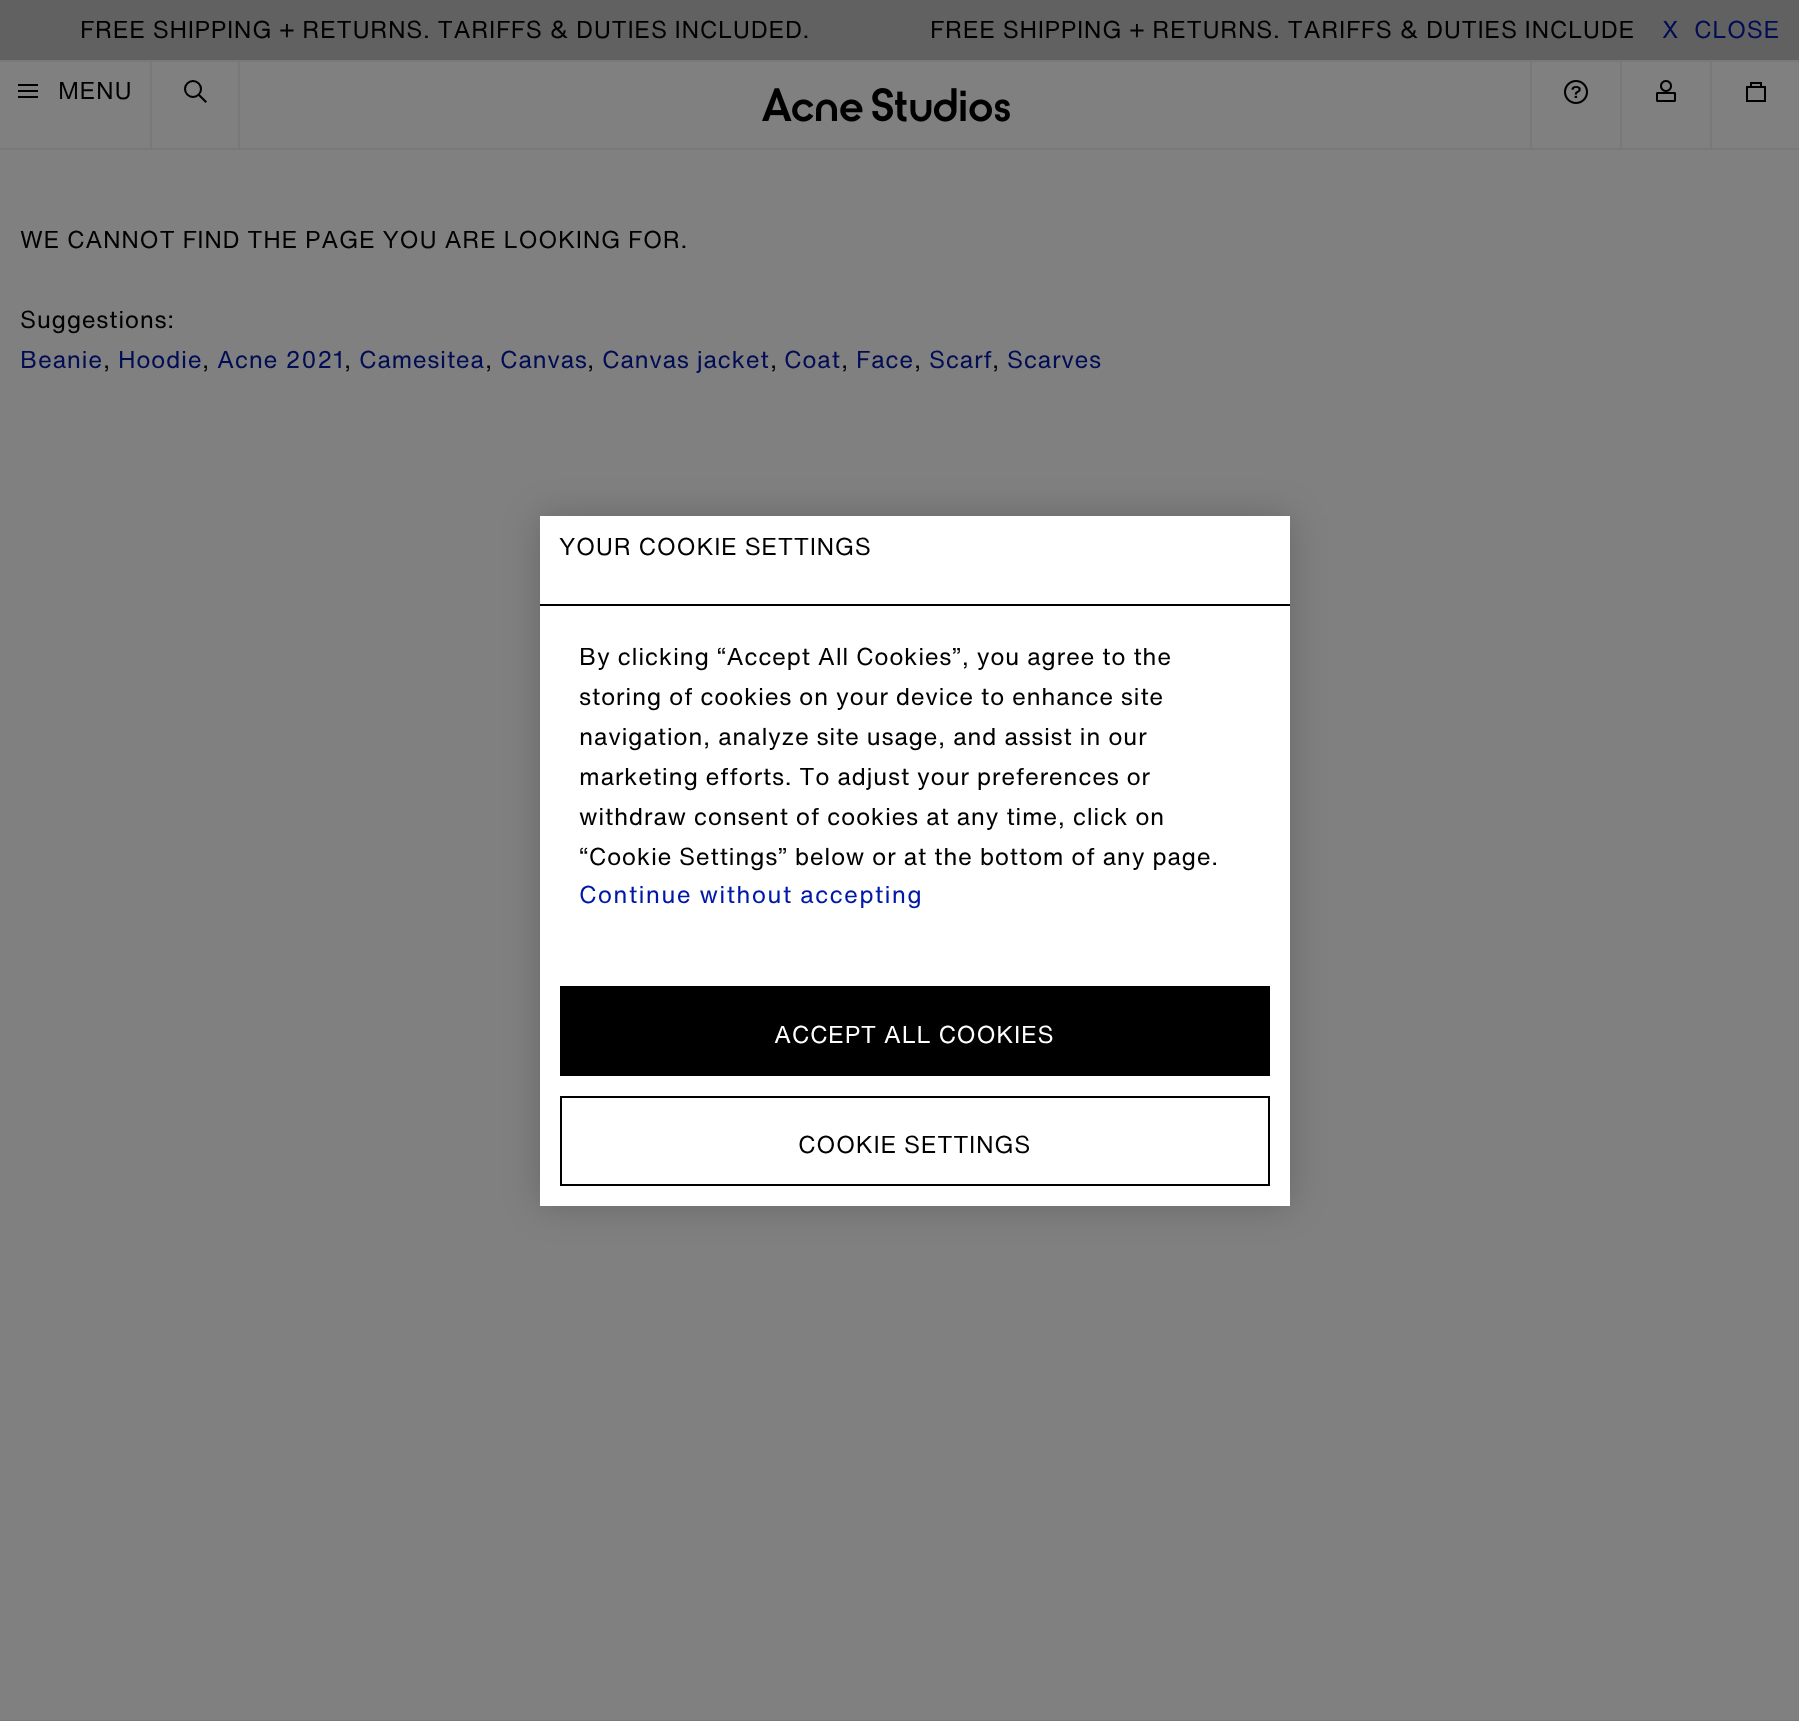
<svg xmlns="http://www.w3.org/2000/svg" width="1799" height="1721">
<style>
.a{font:24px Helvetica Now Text;letter-spacing:0.6px;fill:#000}
.b{font:24px Helvetica Now Text;letter-spacing:0.6px;fill:#000c54}
.c{font:24px Helvetica Now Text;letter-spacing:1.2px;fill:#0018a8}
.d{font:24px Helvetica Now Text;letter-spacing:0.6px;fill:#fff}
</style>
<rect width="100%" height="100%" fill="#808080"/>
<path fill="#616161" d="M0 0h1799v60H0z"/>
<image href="1.png" x="1662" y="20" width="16" height="18"/>
<path fill="#797979" d="M0 148h1799v2H0z"/>
<path fill="#797979" d="M0 60h1799v2H0z"/>
<path fill="#000" d="M18 84h20v2H18z"/>
<path fill="#000" d="M18 90h20v2H18z"/>
<path fill="#000" d="M18 96h20v2H18z"/>
<path fill="#797979" d="M240 60v90l-2-2v-86z"/>
<path fill="#797979" d="M150 150v-90l2 2v86z"/>
<circle fill="none" stroke="#000" stroke-width="2" cx="193" cy="89" r="8"/>
<circle fill="none" stroke="#00000033" stroke-width="2" cx="193" cy="89" r="8"/>
<path fill="#000" d="M198 95.5l1.5-1.5l7.5 7.5l-1.5 1.5z"/>
<image href="2.png" x="762" y="88" width="248" height="34"/>
<path fill="#797979" d="M1530 60h2v90H1530z"/>
<image href="3.png" x="1564" y="80" width="24" height="24"/>
<path fill="#797979" d="M1620 60h2v90H1620z"/>
<image href="4.png" x="1656" y="80" width="20" height="22"/>
<path fill="#797979" d="M1710 60h2v90H1710z"/>
<path fill="none" stroke="#000" stroke-width="2" d="M1747 87h18v14H1747z"/>
<path fill="none" stroke="#000" stroke-width="2" d="M1751 83h10v4H1751z"/>
<path fill="#797979" d="M0 1720h1799v1H0z"/>
<path fill="#00000033" filter="blur(18px)" d="M540 516h750v690H540z"/>
<path fill="#fff" d="M540 516h750v690H540z"/>
<path fill="#000" d="M540 604h750v2H540z"/>
<path fill="#000" d="M560 986h710v90H560z"/>
<path fill="none" stroke="#000" stroke-width="2" d="M561 1097h708v88H561z"/>
<text class="a" x="80" y="38">FREE SHIPPING + RETURNS. TARIFFS &amp; DUTIES INCLUDED.</text>
<text class="a" x="930" y="38">FREE SHIPPING + RETURNS. TARIFFS &amp; DUTIES INCLUDE</text>
<text class="b" x="1694" y="38">CLOSE</text>
<text class="a" x="58" y="99">MENU</text>
<text class="a" x="20" y="248">WE CANNOT FIND THE PAGE YOU ARE LOOKING FOR.</text>
<text class="a" x="20" y="328">Suggestions:</text>
<text class="b" x="20" y="368">Beanie</text>
<text class="a" x="103" y="368">,</text>
<text class="b" x="118" y="368">Hoodie</text>
<text class="a" x="202" y="368">,</text>
<text class="b" x="217" y="368">Acne 2021</text>
<text class="a" x="344" y="368">,</text>
<text class="b" x="359" y="368">Camesitea</text>
<text class="a" x="485" y="368">,</text>
<text class="b" x="500" y="368">Canvas</text>
<text class="a" x="587" y="368">,</text>
<text class="b" x="602" y="368">Canvas jacket</text>
<text class="a" x="770" y="368">,</text>
<text class="b" x="784" y="368">Coat</text>
<text class="a" x="841" y="368">,</text>
<text class="b" x="856" y="368">Face</text>
<text class="a" x="914" y="368">,</text>
<text class="b" x="929" y="368">Scarf</text>
<text class="a" x="992" y="368">,</text>
<text class="b" x="1007" y="368">Scarves</text>
<text class="a" x="559" y="555">YOUR COOKIE SETTINGS</text>
<text class="a" x="579" y="665">By clicking “Accept All Cookies”, you agree to the</text>
<text class="a" x="579" y="705">storing of cookies on your device to enhance site</text>
<text class="a" x="579" y="745">navigation, analyze site usage, and assist in our</text>
<text class="a" x="579" y="785">marketing efforts. To adjust your preferences or</text>
<text class="a" x="579" y="825">withdraw consent of cookies at any time, click on</text>
<text class="a" x="579" y="865">“Cookie Settings” below or at the bottom of any page.</text>
<text class="c" x="579" y="903">Continue without accepting</text>
<text class="d" x="774" y="1043">ACCEPT ALL COOKIES</text>
<text class="a" x="798" y="1153">COOKIE SETTINGS</text>
</svg>
